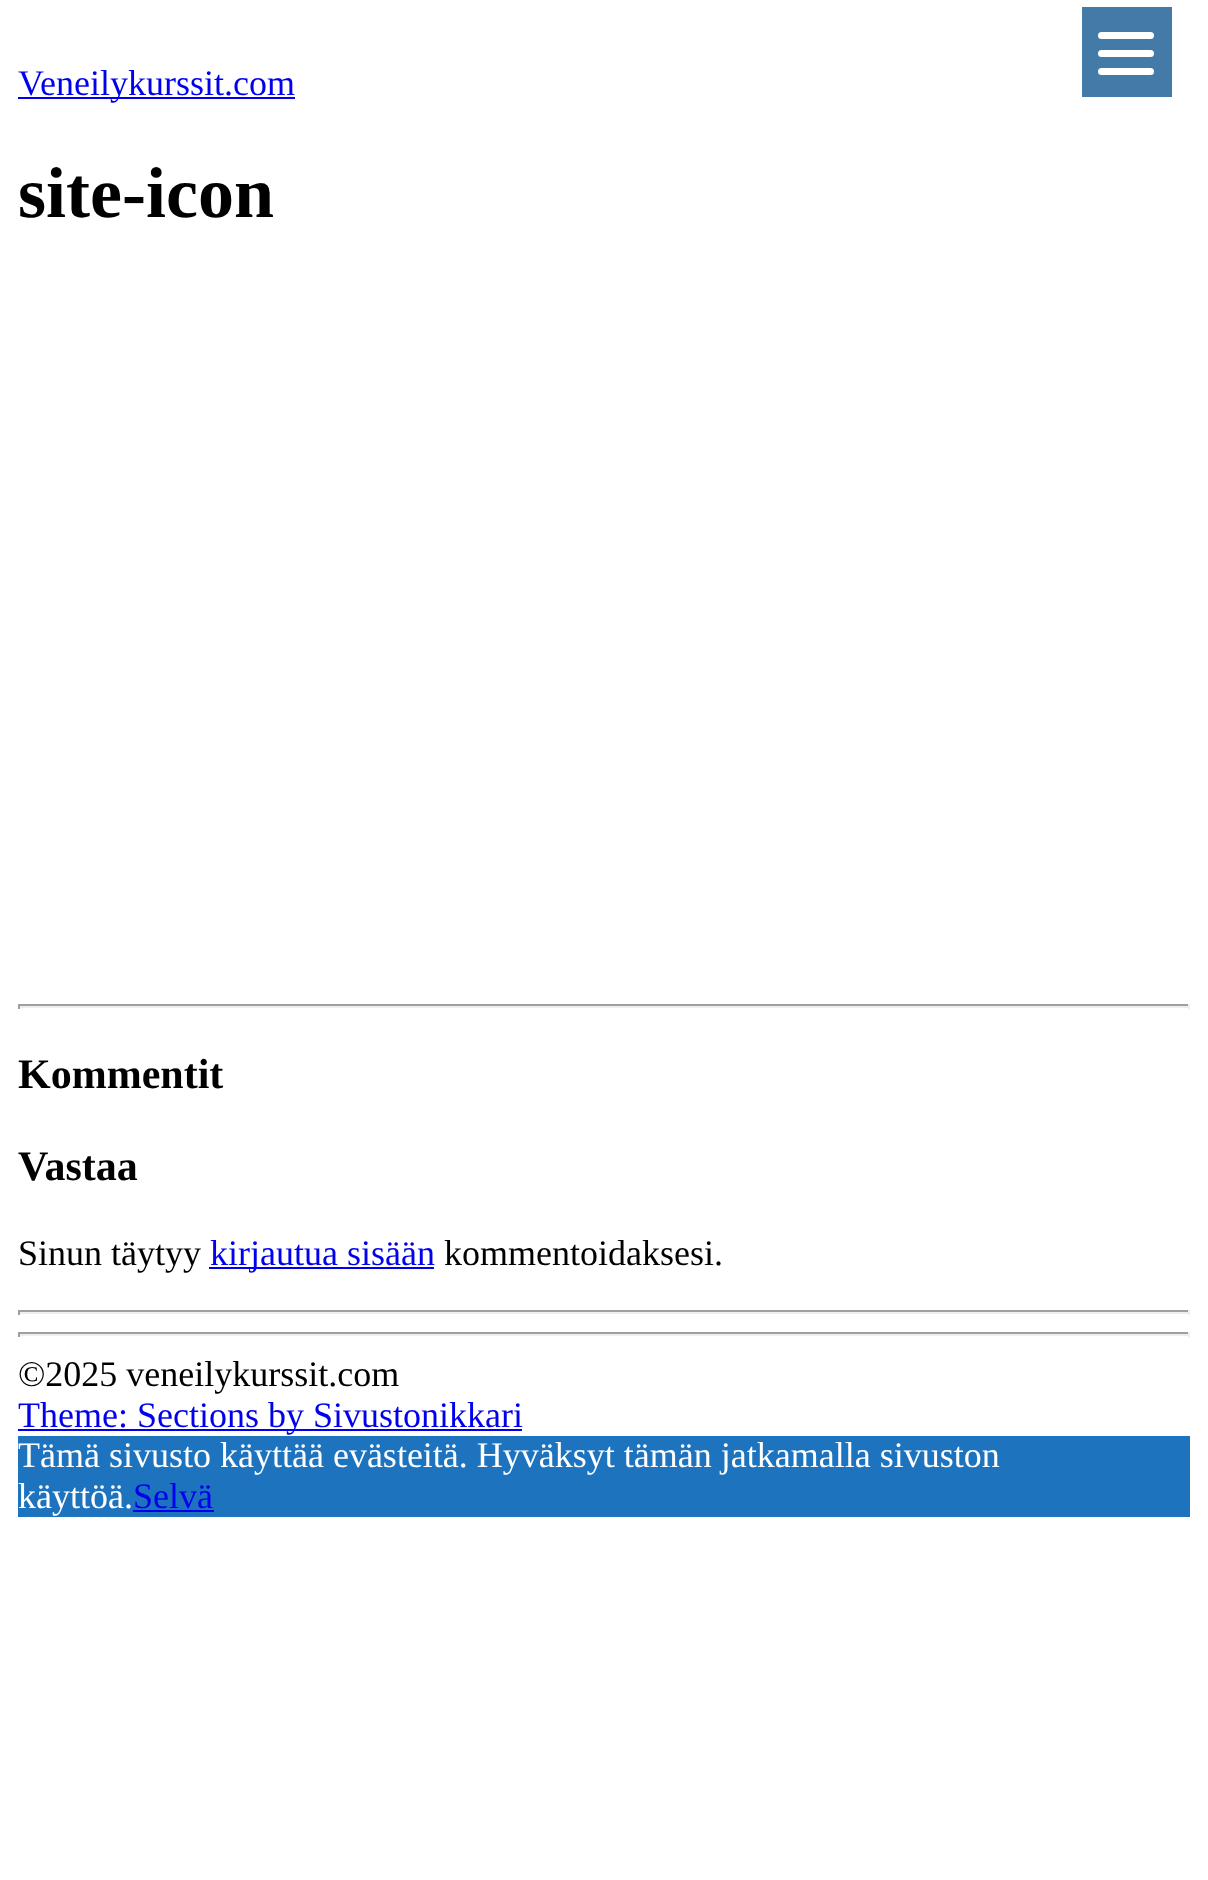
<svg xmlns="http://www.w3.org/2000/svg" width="1208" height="1880">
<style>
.a{font:36px Liberation Serif;fill:#00e}
.b{font:bold 72px Liberation Serif;fill:#000}
.c{font:bold 42px Liberation Serif;fill:#000}
.d{font:36px Liberation Serif;fill:#000}
.e{font:36px Liberation Serif;fill:#fff}
</style>
<rect width="100%" height="100%" fill="#fff"/>
<path fill="#447aa7" d="M1082 7h90v90H1082z"/>
<rect fill="#fff" x="1098" y="50" width="56" height="7" rx="3.5"/>
<rect fill="#fff" x="1098" y="32" width="56" height="7" rx="3.5"/>
<rect fill="#fff" x="1098" y="68" width="56" height="7" rx="3.5"/>
<path fill="#00e" d="M18 97h277v2H18z"/>
<path fill="#9f9f9f" d="M18 1004h1172v2H18z"/>
<path fill="#eee" d="M1188 1004h2v5H1188z"/>
<path fill="#eee" d="M18 1006h1172v2H18z"/>
<path fill="#9f9f9f" d="M18 1004h2v5H18z"/>
<path fill="#00e" d="M209 1267h225v2H209z"/>
<path fill="#9f9f9f" d="M18 1310h1172v2H18z"/>
<path fill="#eee" d="M1188 1310h2v5H1188z"/>
<path fill="#eee" d="M18 1312h1172v2H18z"/>
<path fill="#9f9f9f" d="M18 1310h2v5H18z"/>
<path fill="#9f9f9f" d="M18 1332h1172v2H18z"/>
<path fill="#eee" d="M1188 1332h2v5H1188z"/>
<path fill="#eee" d="M18 1334h1172v2H18z"/>
<path fill="#9f9f9f" d="M18 1332h2v5H18z"/>
<path fill="#00e" d="M18 1429h504v2H18z"/>
<path fill="#1e73be" d="M18 1436h1172v81H18z"/>
<path fill="#00e" d="M133 1510h81v2H133z"/>
<text class="a" x="18" y="95">Veneilykurssit.com</text>
<text class="b" x="18" y="217">site-icon</text>
<text class="c" x="18" y="1088">Kommentit</text>
<text class="c" x="18" y="1180">Vastaa</text>
<text class="d" x="18" y="1265">Sinun täytyy</text>
<text class="a" x="210" y="1265">kirjautua sisään</text>
<text class="d" x="444" y="1265">kommentoidaksesi.</text>
<text class="d" x="18" y="1386">©2025 veneilykurssit.com</text>
<text class="a" x="18" y="1427">Theme: Sections by Sivustonikkari</text>
<text class="e" x="18" y="1467">Tämä sivusto käyttää evästeitä. Hyväksyt tämän jatkamalla sivuston</text>
<text class="e" x="18" y="1508">käyttöä.</text>
<text class="a" x="133" y="1508">Selvä</text>
</svg>
